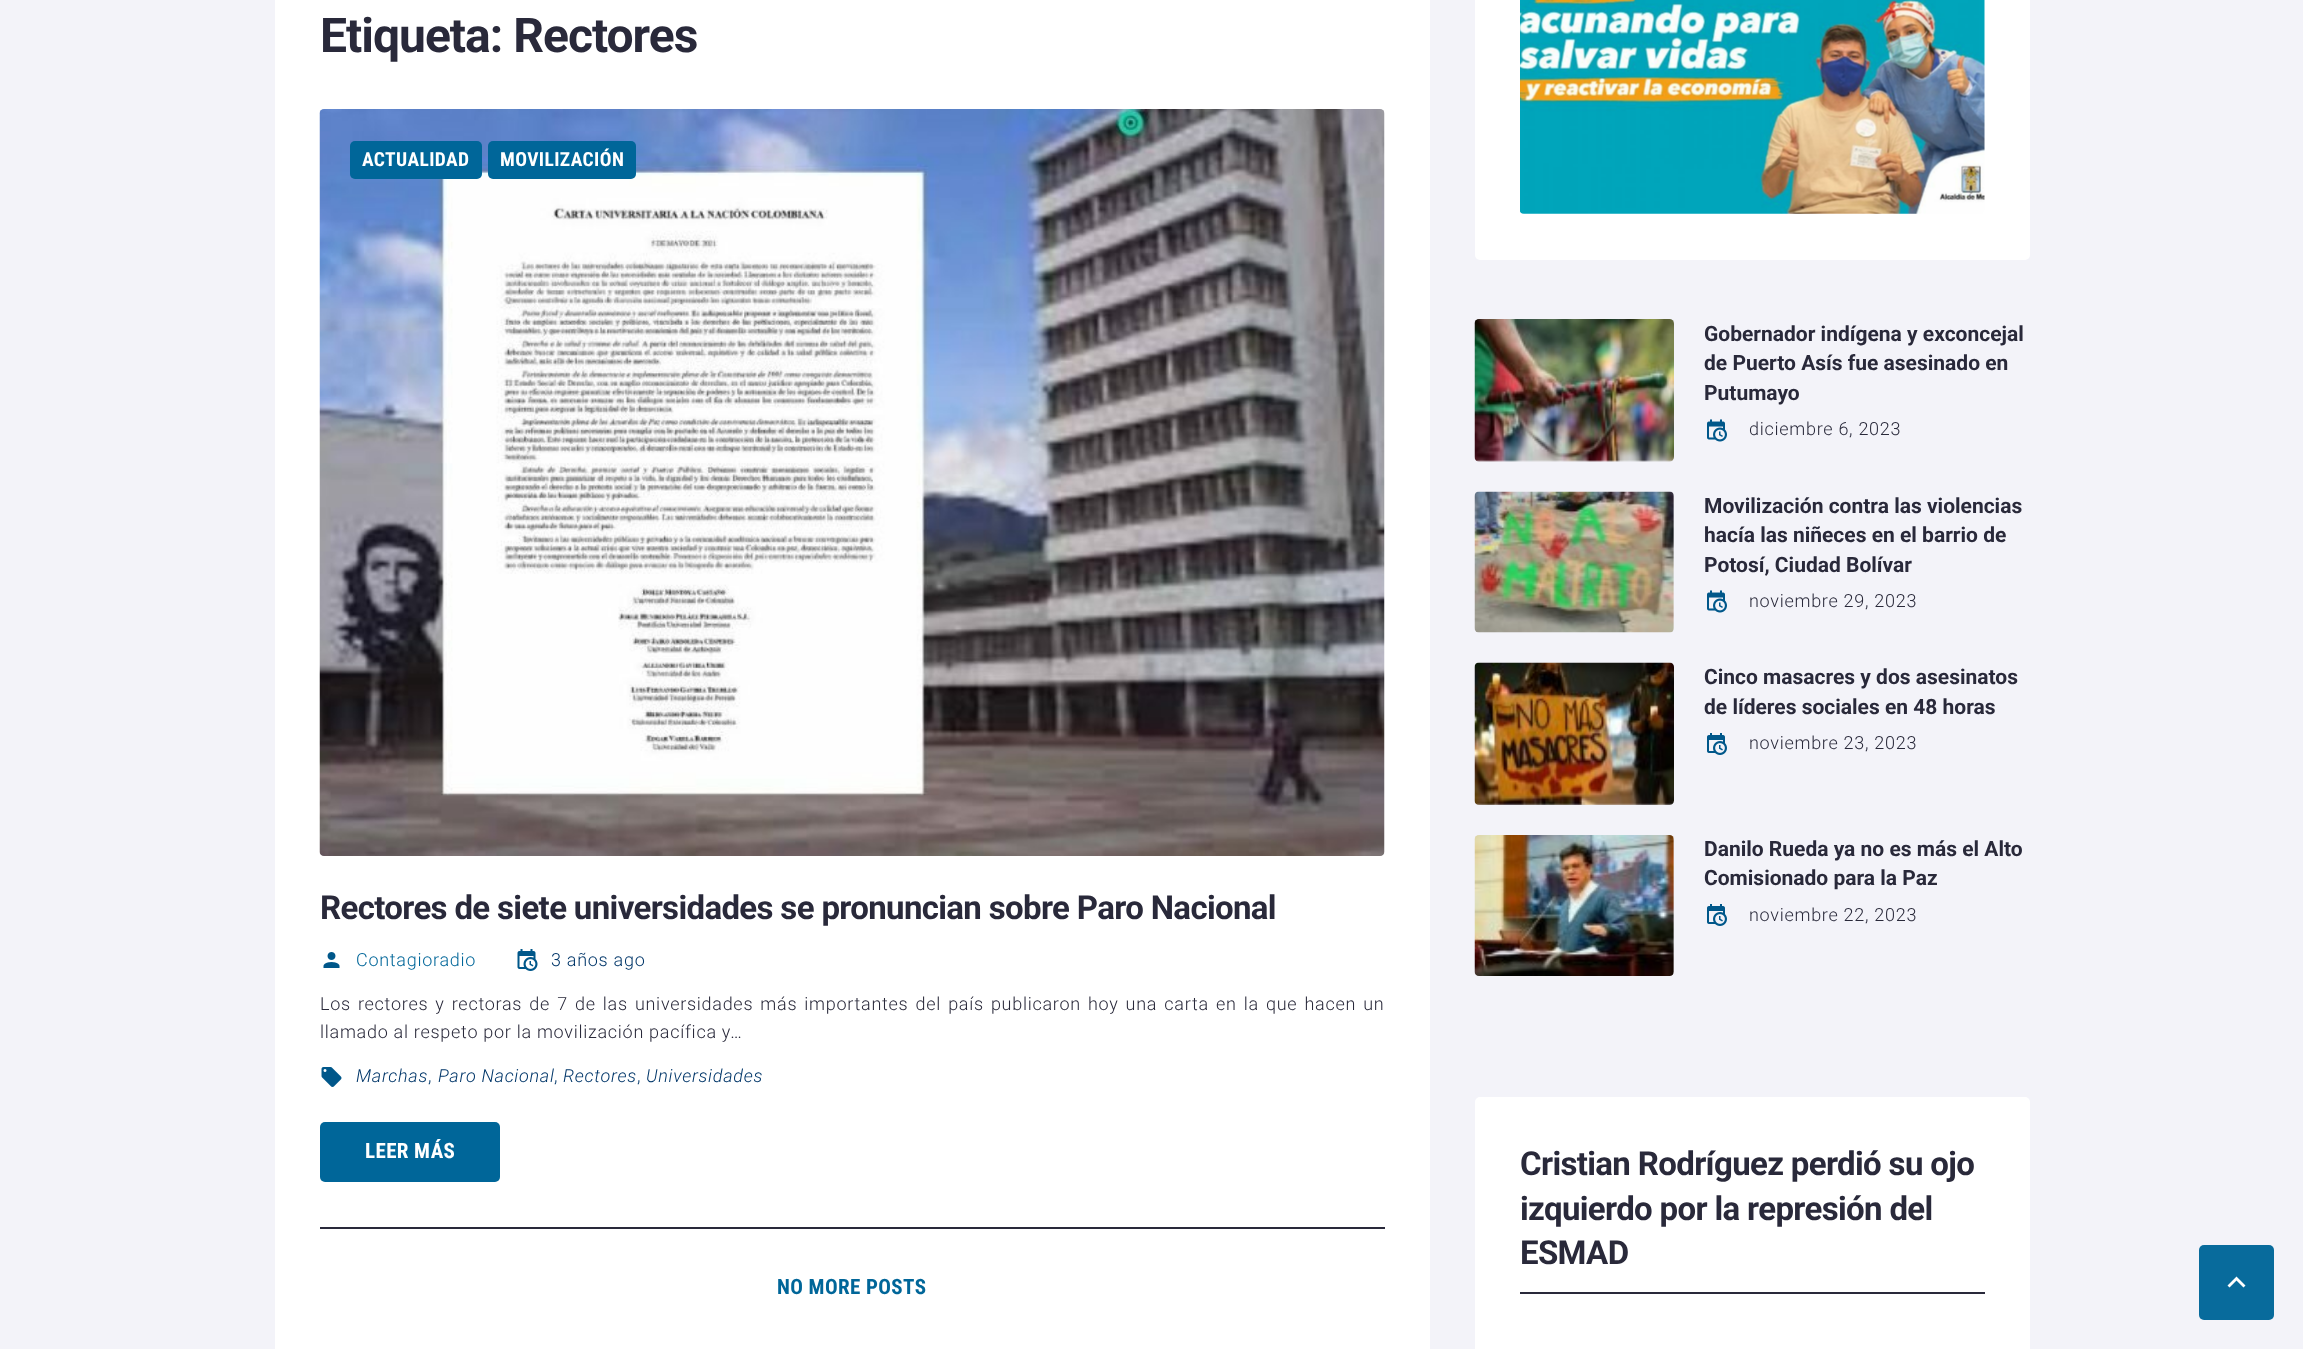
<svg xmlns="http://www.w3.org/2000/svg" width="2303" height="1349">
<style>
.a{font:bold 48px Roboto;letter-spacing:-1px;fill:#29293a}
.b{font:bold 19.5px Roboto Condensed;letter-spacing:0.4px;fill:#fff}
.c{font:bold 33px Roboto;letter-spacing:-0.65px;fill:#29293a}
.d{font:300 18px Roboto;letter-spacing:0.72px;fill:#069}
.e{font:300 18px Roboto;letter-spacing:0.72px;fill:#003669}
.f{font:300 18px Roboto;letter-spacing:0.72px;fill:#29293a}
.g{font:italic 300 18px Roboto;letter-spacing:0.72px;fill:#003669}
.h{font:bold 21px Roboto Condensed;letter-spacing:0.4px;fill:#fff}
.i{font:bold 21px Roboto Condensed;letter-spacing:0.4px;fill:#069}
.j{font:bold 21px Roboto;fill:#29293a}
</style>
<rect width="100%" height="100%" fill="#f3f3f9"/>
<path fill="#fff" d="M275 0h1155v1349H275z"/>
<image href="1.png" x="319" y="109" width="1066" height="747"/>
<rect fill="#069" x="350" y="141" width="132" height="38" rx="5"/>
<rect fill="#069" x="488" y="141" width="148" height="38" rx="5"/>
<image href="2.png" x="323" y="952" width="17" height="16"/>
<image href="3.png" x="517" y="949" width="21" height="22"/>
<image href="4.png" x="321" y="1067" width="21" height="20"/>
<rect fill="#069" x="320" y="1122" width="180" height="60" rx="5"/>
<path fill="#29293a" d="M320 1227h1065v2H320z"/>
<rect fill="#fff" x="1475" y="-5" width="555" height="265" rx="5"/>
<image href="5.png" x="1520" y="0" width="465" height="214"/>
<image href="6.png" x="1474" y="319" width="200" height="143"/>
<image href="7.png" x="1707" y="419" width="20" height="23"/>
<image href="8.png" x="1474" y="491" width="200" height="142"/>
<image href="7.png" x="1707" y="590" width="20" height="23"/>
<image href="9.png" x="1474" y="662" width="200" height="143"/>
<image href="10.png" x="1707" y="733" width="20" height="22"/>
<image href="11.png" x="1474" y="835" width="200" height="141"/>
<image href="10.png" x="1707" y="904" width="20" height="22"/>
<rect fill="#fff" x="1475" y="1097" width="555" height="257" rx="5"/>
<path fill="#29293a" d="M1520 1292h465v2H1520z"/>
<rect fill="#086b9c" x="2199" y="1245" width="75" height="75" rx="5"/>
<path fill="#fff" d="M2229.5 1287.5l7-7l7 7l2-2l-9-9l-9 9z"/>
<text class="a" x="320" y="52">Etiqueta: Rectores</text>
<text class="b" x="362" y="166">ACTUALIDAD</text>
<text class="b" x="500" y="166">MOVILIZACIÓN</text>
<text class="c" x="320" y="919">Rectores de siete universidades se pronuncian sobre Paro Nacional</text>
<text class="d" x="356" y="966">Contagioradio</text>
<text class="e" x="551" y="966">3 años ago</text>
<text class="f" x="320" y="1010" word-spacing="2">Los rectores y rectoras de 7 de las universidades más importantes del país publicaron hoy una carta en la que hacen un</text>
<text class="f" x="320" y="1038">llamado al respeto por la movilización pacífica y…</text>
<text class="g" x="356" y="1082">Marchas</text>
<text class="e" x="428" y="1082">,</text>
<text class="g" x="438" y="1082">Paro Nacional</text>
<text class="e" x="554" y="1082">,</text>
<text class="g" x="563" y="1082">Rectores</text>
<text class="e" x="637" y="1082">,</text>
<text class="g" x="646" y="1082">Universidades</text>
<text class="h" x="365" y="1158">LEER MÁS</text>
<text class="i" x="777" y="1294">NO MORE POSTS</text>
<text class="j" x="1704" y="341">Gobernador indígena y exconcejal</text>
<text class="j" x="1704" y="370">de Puerto Asís fue asesinado en</text>
<text class="j" x="1704" y="400">Putumayo</text>
<text class="f" x="1749" y="435">diciembre 6, 2023</text>
<text class="j" x="1704" y="513">Movilización contra las violencias</text>
<text class="j" x="1704" y="542">hacía las niñeces en el barrio de</text>
<text class="j" x="1704" y="572">Potosí, Ciudad Bolívar</text>
<text class="f" x="1749" y="607">noviembre 29, 2023</text>
<text class="j" x="1704" y="684">Cinco masacres y dos asesinatos</text>
<text class="j" x="1704" y="714">de líderes sociales en 48 horas</text>
<text class="f" x="1749" y="749">noviembre 23, 2023</text>
<text class="j" x="1704" y="856">Danilo Rueda ya no es más el Alto</text>
<text class="j" x="1704" y="885">Comisionado para la Paz</text>
<text class="f" x="1749" y="921">noviembre 22, 2023</text>
<text class="c" x="1520" y="1175">Cristian Rodríguez perdió su ojo</text>
<text class="c" x="1520" y="1220">izquierdo por la represión del</text>
<text class="c" x="1520" y="1264">ESMAD</text>
</svg>
